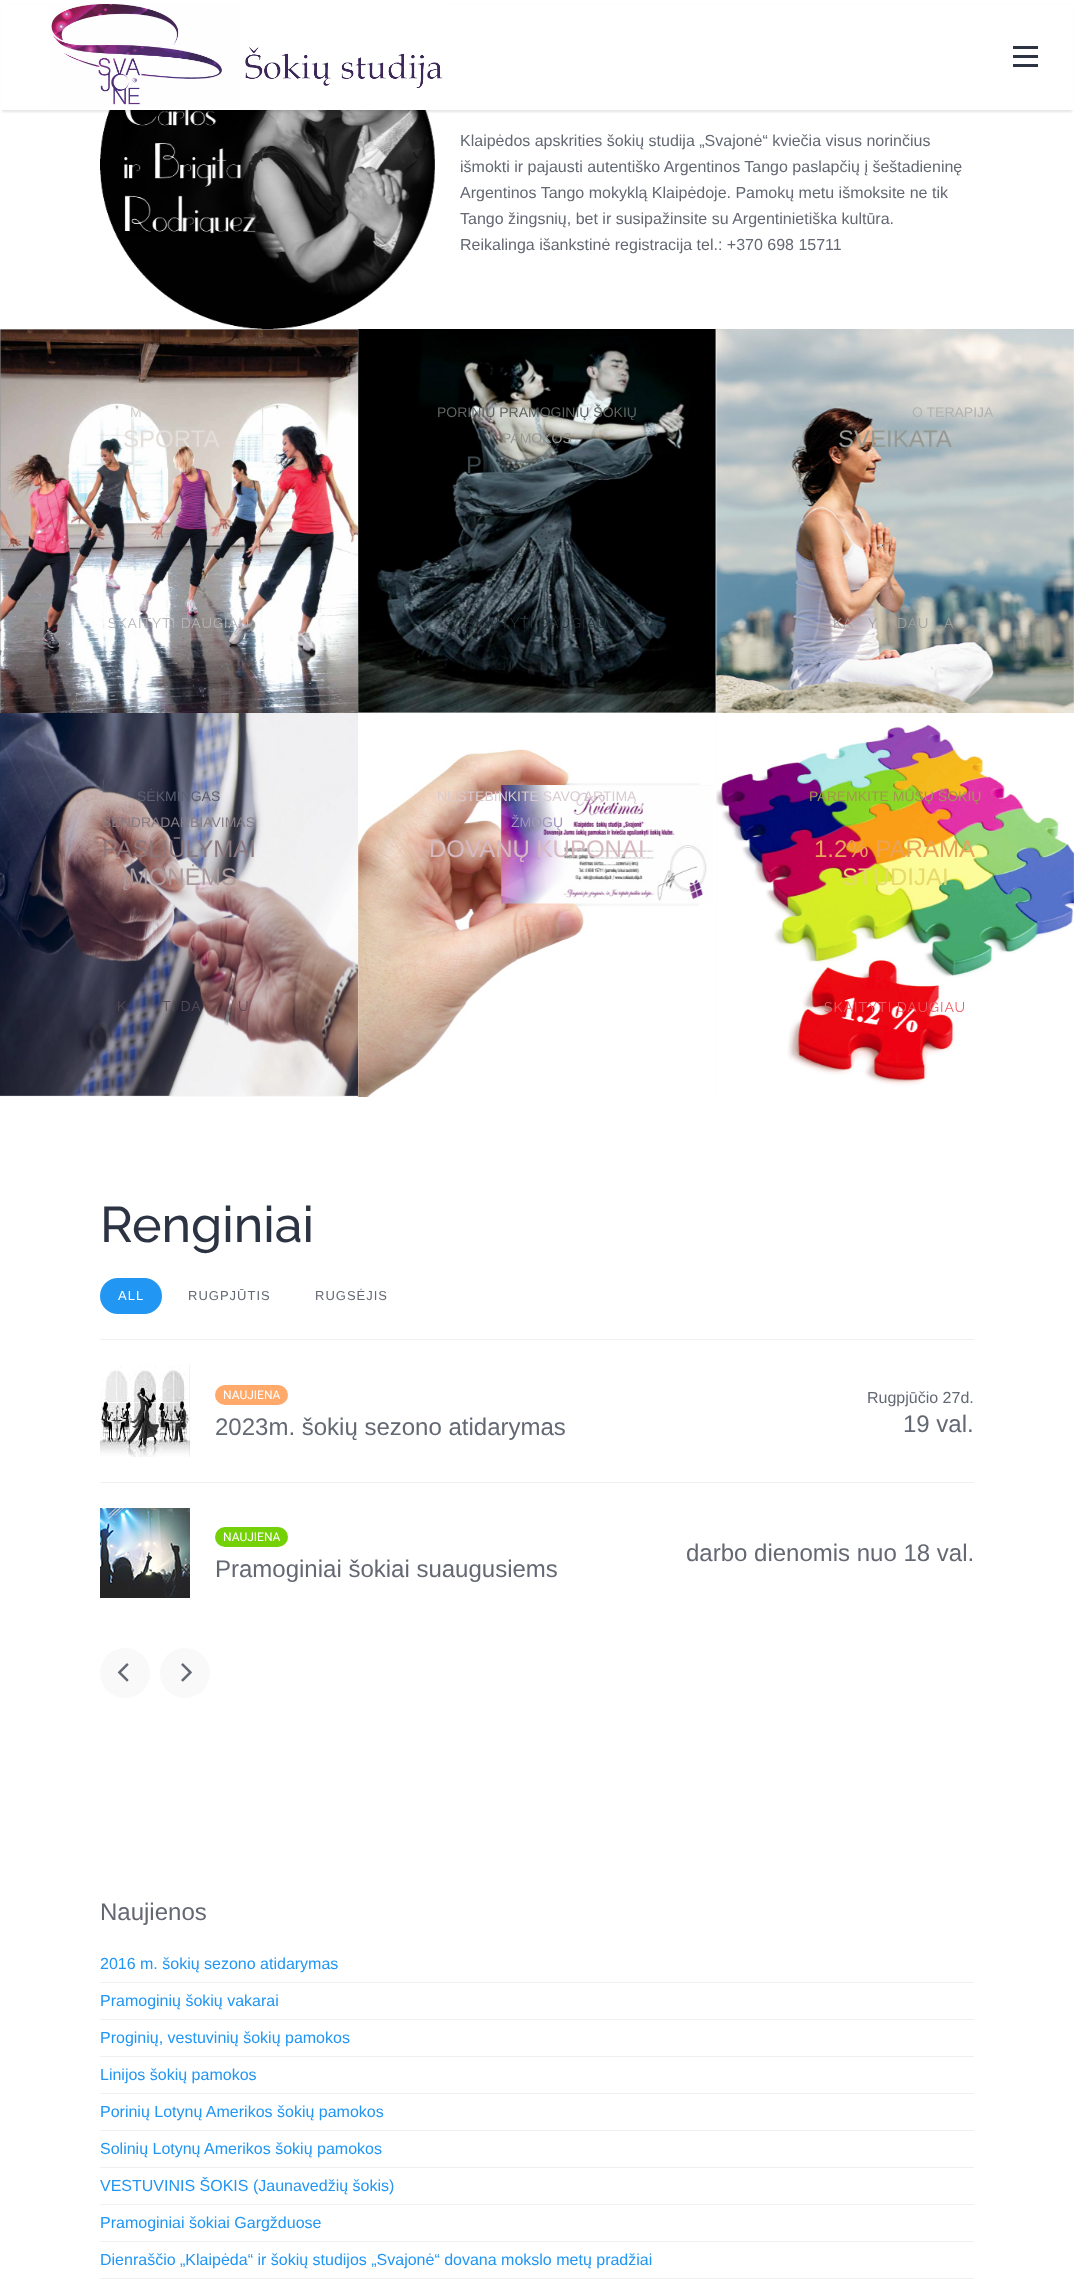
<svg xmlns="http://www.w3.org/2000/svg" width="1074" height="2291">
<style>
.a{font:16px Liberation Sans;fill:#636873}
.b{font:14px Liberation Sans;fill:#d4cdc7}
.c{font:24px Liberation Sans;fill:#e3ded9}
.d{font:14px Raleway;letter-spacing:1px;fill:#b7b6ba}
.e{font:14px Liberation Sans;fill:#5f6361}
.f{font:14px Liberation Sans;fill:#969892}
.g{font:24px Liberation Sans;fill:#3c484d}
.h{font:14px Raleway;letter-spacing:1px;fill:#252f34}
.i{font:14px Liberation Sans;fill:#b0b2b2}
.j{font:24px Liberation Sans;fill:#969892}
.k{font:14px Raleway;letter-spacing:1px;fill:#a19f9f}
.l{font:14px Liberation Sans;fill:#5c5f71}
.m{font:14px Liberation Sans;fill:#877c84}
.n{font:24px Liberation Sans;fill:#8b787e}
.o{font:24px Liberation Sans;fill:#aa9a9c}
.p{font:14px Raleway;letter-spacing:1px;fill:#584c5b}
.q{font:14px Liberation Sans;fill:#d8cbd0}
.r{font:14px Liberation Sans;fill:#a196c0}
.s{font:24px Liberation Sans;fill:#d7bac1}
.t{font:14px Liberation Sans;fill:#a3964e}
.u{font:24px Liberation Sans;fill:#eaa359}
.v{font:24px Liberation Sans;fill:#e7da6b}
.w{font:14px Raleway;letter-spacing:1px;fill:#ed5f65}
.x{font:500 50px Raleway;fill:#2c3343}
.y{font:13px Liberation Sans;letter-spacing:1px;fill:#fff}
.z{font:13px Liberation Sans;letter-spacing:1px;fill:#636873}
.a1{font:12px Roboto;fill:#fff}
.b1{font:24px Liberation Sans;fill:#636873}
.c1{font:16px Liberation Sans;fill:#2196f3}
</style>
<rect width="100%" height="100%" fill="#fff"/>
<image href="2.png" x="100" y="110" width="335" height="219"/>
<path fill="#0000001a" filter="blur(1px)" d="M2 6h1070v106H2z"/>
<path fill="#fff" d="M1 5h1072v105H1z"/>
<image href="1.png" x="50" y="3" width="393" height="103"/>
<path fill="#2c3343" d="M1013 55h25v3H1013z"/>
<path fill="#2c3343" d="M1013 46h25v3H1013z"/>
<path fill="#2c3343" d="M1013 64h25v3H1013z"/>
<path fill="#f9f9f9" d="M0 329h1074v768H0z"/>
<image href="3.png" x="0" y="329" width="358" height="384"/>
<image href="4.png" x="358" y="329" width="358" height="384"/>
<image href="5.png" x="716" y="329" width="358" height="384"/>
<image href="6.png" x="0" y="713" width="358" height="383"/>
<image href="7.png" x="358" y="713" width="358" height="384"/>
<image href="8.png" x="716" y="713" width="358" height="384"/>
<rect fill="#2196f3" x="100" y="1278" width="62" height="36" rx="18"/>
<path fill="#f0f0f0" d="M100 1339h874v1H100z"/>
<image href="9.png" x="100" y="1365" width="90" height="92"/>
<rect fill="#ffa96a" x="215" y="1385" width="73" height="20" rx="10"/>
<path fill="#f0f0f0" d="M100 1482h874v1H100z"/>
<image href="10.png" x="100" y="1508" width="90" height="90"/>
<rect fill="#74d108" x="215" y="1527" width="73" height="20" rx="10"/>
<circle fill="#f9f9f9" cx="125" cy="1673" r="25"/>
<image href="11.png" x="117" y="1663" width="12" height="19"/>
<circle fill="#f9f9f9" cx="185" cy="1673" r="25"/>
<image href="12.png" x="181" y="1663" width="11" height="19"/>
<path fill="#f0f0f0" d="M100 1982h874v1H100z"/>
<path fill="#f0f0f0" d="M100 2019h874v1H100z"/>
<path fill="#f0f0f0" d="M100 2056h874v1H100z"/>
<path fill="#f0f0f0" d="M100 2093h874v1H100z"/>
<path fill="#f0f0f0" d="M100 2130h874v1H100z"/>
<path fill="#f0f0f0" d="M100 2167h874v1H100z"/>
<path fill="#f0f0f0" d="M100 2204h874v1H100z"/>
<path fill="#f0f0f0" d="M100 2241h874v1H100z"/>
<path fill="#f0f0f0" d="M100 2278h874v1H100z"/>
<text class="a" x="460" y="146">Klaipėdos apskrities šokių studija „Svajonė“ kviečia visus norinčius</text>
<text class="a" x="460" y="172">išmokti ir pajausti autentiško Argentinos Tango paslapčių į šeštadieninę</text>
<text class="a" x="460" y="198">Argentinos Tango mokyklą Klaipėdoje. Pamokų metu išmoksite ne tik</text>
<text class="a" x="460" y="224">Tango žingsnių, bet ir susipažinsite su Argentinietiška kultūra.</text>
<text class="a" x="460" y="250">Reikalinga išankstinė registracija tel.: +370 698 15711</text>
<text class="b" x="130" y="417">M</text>
<text class="c" x="123" y="447">SPORTA</text>
<text class="d" x="108" y="628">SKAITYTI DAUGIAU</text>
<text class="e" x="437" y="417">PORINIŲ PRAMOGINIŲ ŠOKIŲ</text>
<text class="f" x="502" y="443">PAMOKOS</text>
<text class="g" x="466" y="473">P</text>
<text class="h" x="466" y="628">SKAITYTI DAUGIAU</text>
<text class="i" x="912" y="417">O TERAPIJA</text>
<text class="j" x="838" y="447">SVEIKATA</text>
<text class="k" x="833" y="628">KA</text>
<text class="k" x="868" y="628">Y</text>
<text class="k" x="897" y="628">DAU</text>
<text class="k" x="944" y="628">A</text>
<text class="l" x="137" y="801">SĖKMINGAS</text>
<text class="m" x="102" y="827">BENDRADARBIAVIMAS</text>
<text class="n" x="102" y="857">PASLIŪLYMAI</text>
<text class="o" x="122" y="885">ĮMONĖMS</text>
<text class="p" x="117" y="1011">K</text>
<text class="p" x="162" y="1011">TI DA</text>
<text class="p" x="238" y="1011">U</text>
<text class="q" x="437" y="801">NUSTEBINKITE SAVO ARTIMĄ</text>
<text class="r" x="511" y="827">ŽMOGŲ</text>
<text class="s" x="429" y="857">DOVANŲ KUPONAI</text>
<text class="t" x="809" y="801">PAREMKITE MŪSŲ ŠOKIŲ</text>
<text class="u" x="814" y="857">1.2% PARAMA</text>
<text class="v" x="842" y="885">STUDIJAI</text>
<text class="w" x="824" y="1012">SKAITYTI DAUGIAU</text>
<text class="x" x="100" y="1242">Renginiai</text>
<text class="y" x="118" y="1300">ALL</text>
<text class="z" x="188" y="1300">RUGPJŪTIS</text>
<text class="z" x="315" y="1300">RUGSĖJIS</text>
<text class="a1" x="223" y="1399">NAUJIENA</text>
<text class="b1" x="215" y="1435">2023m. šokių sezono atidarymas</text>
<text class="a" x="867" y="1403">Rugpjūčio 27d.</text>
<text class="b1" x="903" y="1432">19 val.</text>
<text class="a1" x="223" y="1541">NAUJIENA</text>
<text class="b1" x="215" y="1577">Pramoginiai šokiai suaugusiems</text>
<text class="b1" x="686" y="1561">darbo dienomis nuo 18 val.</text>
<text class="b1" x="100" y="1920">Naujienos</text>
<text class="c1" x="100" y="1969">2016 m. šokių sezono atidarymas</text>
<text class="c1" x="100" y="2006">Pramoginių šokių vakarai</text>
<text class="c1" x="100" y="2043">Proginių, vestuvinių šokių pamokos</text>
<text class="c1" x="100" y="2080">Linijos šokių pamokos</text>
<text class="c1" x="100" y="2117">Porinių Lotynų Amerikos šokių pamokos</text>
<text class="c1" x="100" y="2154">Solinių Lotynų Amerikos šokių pamokos</text>
<text class="c1" x="100" y="2191">VESTUVINIS ŠOKIS (Jaunavedžių šokis)</text>
<text class="c1" x="100" y="2228">Pramoginiai šokiai Gargžduose</text>
<text class="c1" x="100" y="2265">Dienraščio „Klaipėda“ ir šokių studijos „Svajonė“ dovana mokslo metų pradžiai</text>
</svg>
